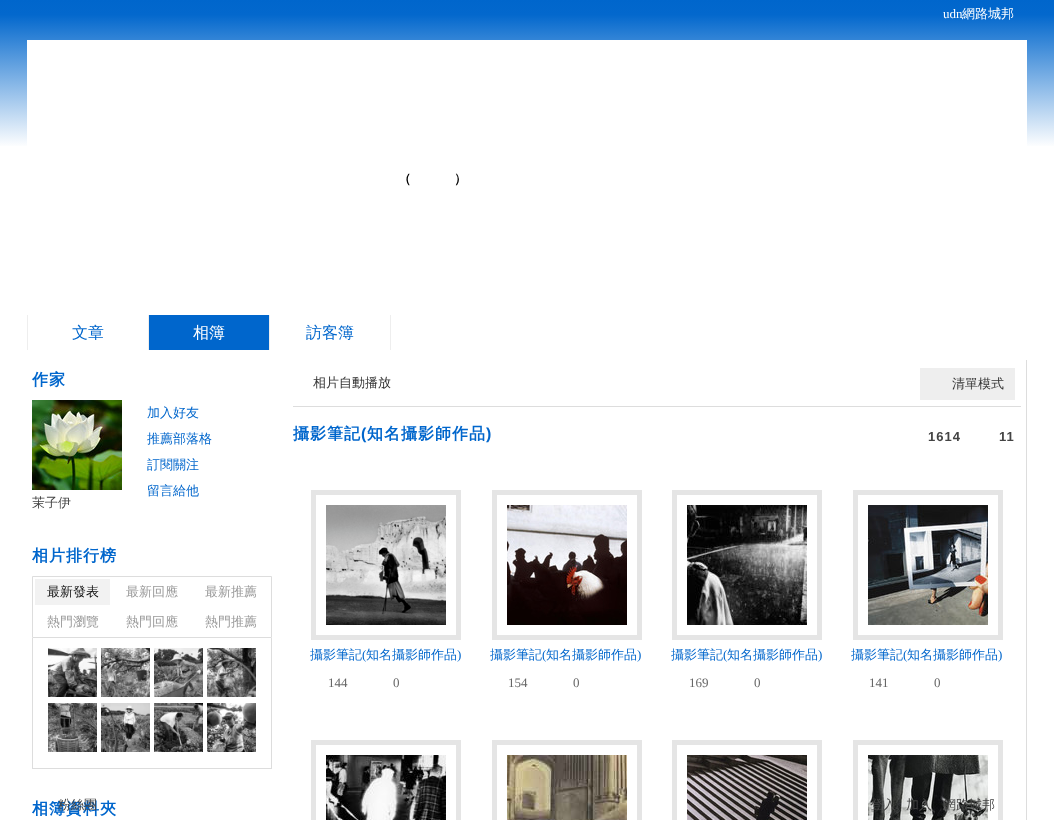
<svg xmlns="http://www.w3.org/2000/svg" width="1054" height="820">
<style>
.a{font:13px Liberation Serif;fill:#fff}
.b{font:500 13px WenQuanYi Zen Hei;fill:#fff}
.c{font:bold 13px WenQuanYi Zen Hei;letter-spacing:1px;fill:#000}
.d{font:500 16px WenQuanYi Zen Hei;fill:#06c}
.e{font:500 16px WenQuanYi Zen Hei;fill:#fff}
.f{font:bold 16px WenQuanYi Zen Hei;letter-spacing:1px;fill:#06c}
.g{font:500 13px WenQuanYi Zen Hei;fill:#06c}
.h{font:500 13px WenQuanYi Zen Hei;fill:#444}
.i{font:500 13px WenQuanYi Zen Hei;fill:#111}
.j{font:500 13px WenQuanYi Zen Hei;fill:#999}
.k{font:500 13px WenQuanYi Zen Hei;fill:#333}
.l{font:bold 16px Liberation Sans;letter-spacing:1px;fill:#06c}
.m{font:bold 13px Liberation Sans;letter-spacing:1px;fill:#444}
.n{font:13px Liberation Serif;fill:#06c}
.o{font:13px Liberation Serif;fill:#666}
</style>
<defs>
<linearGradient id="g1" gradientUnits="userSpaceOnUse" x1="527" y1="0" x2="527" y2="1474"><stop offset="0" stop-color="#06c"/><stop offset="0.01" stop-color="#0368cd"/><stop offset="0.1" stop-color="#fff"/><stop offset="1" stop-color="#fff"/></linearGradient>
</defs>
<rect width="100%" height="100%" fill="#fff"/>
<path fill="url(#g1)" d="M0 0h1054v146H0z"/>
<path fill="#fff" d="M27 40h1000v106H27z"/>
<path fill="#eee" d="M27 315h1v35H27z"/>
<path fill="#eee" d="M148 315h1v35H148z"/>
<path fill="#eee" d="M269 315h1v35H269z"/>
<path fill="#06c" d="M149 315h120v35H149z"/>
<path fill="#eee" d="M390 315h1v35H390z"/>
<image href="1.png" x="32" y="400" width="90" height="90"/>
<path fill="none" stroke="#ddd" d="M32.5 576.5h239v61H32.5z"/>
<path fill="#f2f2f2" d="M35 579h75v26H35z"/>
<path fill="#ddd" d="M271 638h1v131H271z"/>
<path fill="#ddd" d="M32 768h240v1H32z"/>
<path fill="#ddd" d="M32 638h1v131H32z"/>
<image href="2.png" x="48" y="648" width="49" height="49"/>
<image href="3.png" x="101" y="648" width="49" height="49"/>
<image href="4.png" x="154" y="648" width="49" height="49"/>
<image href="5.png" x="207" y="648" width="49" height="49"/>
<image href="6.png" x="48" y="703" width="49" height="49"/>
<image href="7.png" x="101" y="703" width="49" height="49"/>
<image href="8.png" x="154" y="703" width="49" height="49"/>
<image href="9.png" x="207" y="703" width="49" height="49"/>
<path fill="#ddd" d="M1026 360h1v460H1026z"/>
<path fill="#ddd" d="M293 406h728v1H293z"/>
<path fill="#eee" d="M920 368h95v32H920z"/>
<path fill="none" stroke="#e5e5e5" stroke-width="5" d="M313.5 492.5h145v145H313.5z"/>
<image href="10.png" x="326" y="505" width="120" height="120"/>
<path fill="none" stroke="#e5e5e5" stroke-width="5" d="M494.5 492.5h145v145H494.5z"/>
<image href="11.png" x="507" y="505" width="120" height="120"/>
<path fill="none" stroke="#e5e5e5" stroke-width="5" d="M674.5 492.5h145v145H674.5z"/>
<image href="12.png" x="687" y="505" width="120" height="120"/>
<path fill="none" stroke="#e5e5e5" stroke-width="5" d="M855.5 492.5h145v145H855.5z"/>
<image href="13.png" x="868" y="505" width="120" height="120"/>
<path fill="none" stroke="#e5e5e5" stroke-width="5" d="M313.5 742.5h145v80H313.5z"/>
<image href="14.png" x="326" y="755" width="120" height="65"/>
<path fill="none" stroke="#e5e5e5" stroke-width="5" d="M494.5 742.5h145v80H494.5z"/>
<image href="15.png" x="507" y="755" width="120" height="65"/>
<path fill="none" stroke="#e5e5e5" stroke-width="5" d="M674.5 742.5h145v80H674.5z"/>
<image href="16.png" x="687" y="755" width="120" height="65"/>
<path fill="none" stroke="#e5e5e5" stroke-width="5" d="M855.5 742.5h145v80H855.5z"/>
<image href="17.png" x="868" y="755" width="120" height="65"/>
<text class="a" x="943" y="18">udn</text>
<text class="b" x="962" y="18">網路城邦</text>
<text class="c" x="398" y="183">（</text>
<text class="c" x="454" y="183">）</text>
<text class="d" x="72" y="338">文章</text>
<text class="e" x="193" y="338">相簿</text>
<text class="d" x="306" y="338">訪客簿</text>
<text class="f" x="32" y="385">作家</text>
<text class="g" x="147" y="417">加入好友</text>
<text class="g" x="147" y="443">推薦部落格</text>
<text class="g" x="147" y="469">訂閱關注</text>
<text class="g" x="147" y="495">留言給他</text>
<text class="h" x="32" y="507">茉子伊</text>
<text class="f" x="32" y="561">相片排行榜</text>
<text class="i" x="47" y="596">最新發表</text>
<text class="j" x="126" y="596">最新回應</text>
<text class="j" x="205" y="596">最新推薦</text>
<text class="j" x="47" y="626">熱門瀏覽</text>
<text class="j" x="126" y="626">熱門回應</text>
<text class="j" x="205" y="626">熱門推薦</text>
<text class="f" x="32" y="814">相簿資料夾</text>
<text class="k" x="313" y="387">相片自動播放</text>
<text class="k" x="952" y="388">清單模式</text>
<text class="f" x="293" y="439">攝影筆記</text>
<text class="l" x="361" y="439">(</text>
<text class="f" x="367" y="439">知名攝影師作品</text>
<text class="l" x="486" y="439">)</text>
<text class="m" x="928" y="441">1614</text>
<text class="m" x="999" y="441">11</text>
<text class="g" x="310" y="659">攝影筆記</text>
<text class="n" x="362" y="659">(</text>
<text class="g" x="366" y="659">知名攝影師作品</text>
<text class="n" x="457" y="659">)</text>
<text class="o" x="328" y="687">144</text>
<text class="o" x="393" y="687">0</text>
<text class="g" x="490" y="659">攝影筆記</text>
<text class="n" x="542" y="659">(</text>
<text class="g" x="546" y="659">知名攝影師作品</text>
<text class="n" x="637" y="659">)</text>
<text class="o" x="508" y="687">154</text>
<text class="o" x="573" y="687">0</text>
<text class="g" x="671" y="659">攝影筆記</text>
<text class="n" x="723" y="659">(</text>
<text class="g" x="727" y="659">知名攝影師作品</text>
<text class="n" x="818" y="659">)</text>
<text class="o" x="689" y="687">169</text>
<text class="o" x="754" y="687">0</text>
<text class="g" x="851" y="659">攝影筆記</text>
<text class="n" x="903" y="659">(</text>
<text class="g" x="907" y="659">知名攝影師作品</text>
<text class="n" x="998" y="659">)</text>
<text class="o" x="869" y="687">141</text>
<text class="o" x="934" y="687">0</text>
<text class="h" x="58" y="809">粉絲團</text>
<text class="h" x="870" y="809">登入</text>
<text class="h" x="906" y="809">加入</text>
<text class="h" x="943" y="809">網路城邦</text>
</svg>
